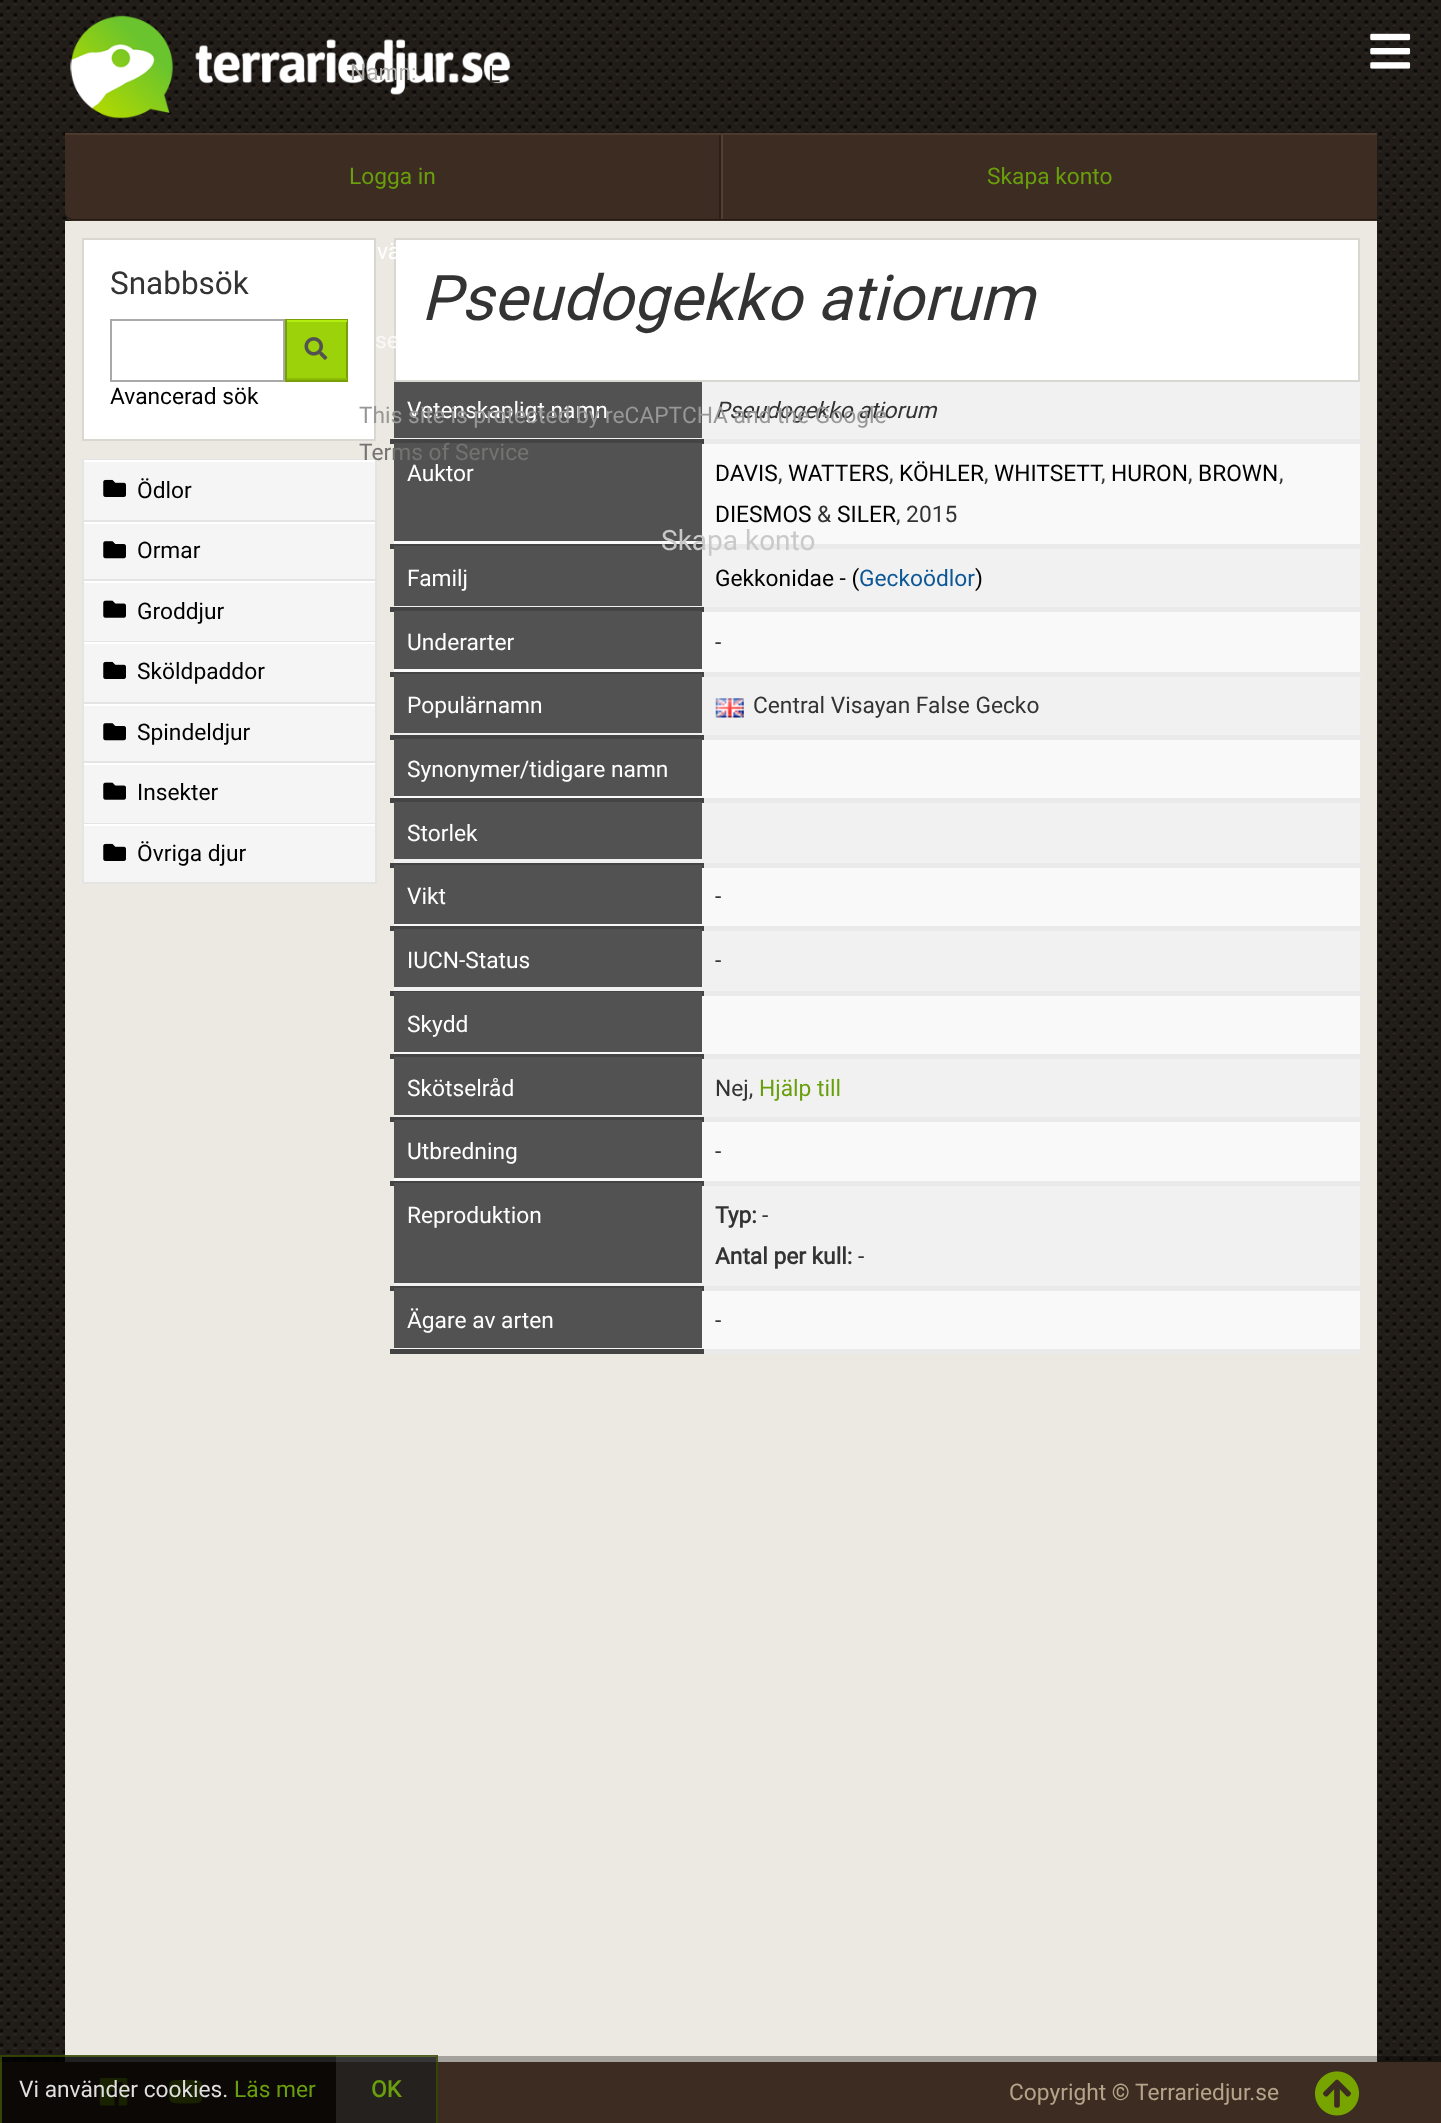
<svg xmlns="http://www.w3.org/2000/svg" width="1441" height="2123">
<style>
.a{font:22.75px Roboto;fill:#aeadab}
.b{font:22.75px Roboto;fill:#fff}
.c{font:22.75px Roboto;fill:#faf9f8}
.d{font:22.75px Roboto;fill:#737371}
.e{font:28px Roboto;fill:#c9c9c9}
.f{font:22.75px Roboto;fill:#2a2622}
.g{font:22.75px Roboto;fill:#699e0d}
.h{font:31.5px Roboto;fill:#333}
.i{font:22.75px Roboto;fill:#000}
.j{font:italic 63px Roboto;fill:#333}
.k{font:italic 22.75px Roboto;fill:#333}
.l{font:22.75px Roboto;fill:#979797}
.m{font:22.75px Roboto;fill:#333}
.n{font:22.75px Roboto;fill:#0c5797}
.o{font:bold 22.75px Roboto;fill:#333}
.p{font:22.75px Roboto;fill:#dfdfdf}
.q{font:bold 22.75px Roboto;fill:#699e0d}
.r{font:22.75px Roboto;fill:#b6a48a}
</style>
<rect width="100%" height="100%" fill="#211c17"/>
<image href="1.png" x="0" y="0" width="1440" height="2062"/>
<image href="2.png" x="1370" y="33" width="41" height="36"/>
<image href="3.png" x="70" y="15" width="441" height="104"/>
<path fill="#3c2c22" d="M65 133h1312v88h-1303c-5 0-9-4-9-9z"/>
<path fill="#4d392d" d="M65 133h1312v2H65z"/>
<path fill="#241a14" d="M1377 220v-1h-1303c-5 0-9-3-9-7c0 5 4 8 9 8z"/>
<path fill="#2a211b" d="M719 135h2v84H719z"/>
<path fill="#514035" d="M721 135h2v84H721z"/>
<path fill="#ece9e2" d="M65 221h1312v1841H65z"/>
<path fill="#fff" stroke="#d9d7d2" stroke-width="2" d="M83 239h292v201H83z"/>
<path fill="none" stroke="#a9a9a9" stroke-width="2" d="M111 320h173v61H111z"/>
<path fill="#9cd209" d="M287 322h59v56H287z"/>
<path fill="none" stroke="#77a006" stroke-width="2" d="M286 320h61v61H286z"/>
<path fill="#b2ed10" d="M287 320h60v2H287z"/>
<path fill="#8bbb07" d="M287 378h60v2H287z"/>
<image href="4.png" x="304" y="337" width="24" height="23"/>
<path fill="#e4e4e4" d="M82 459h294v1H82z"/>
<path fill="#f5f5f5" d="M84 462h291v58H84z"/>
<path fill="#fff" d="M82 460h294v2H82z"/>
<path fill="#e4e4e4" d="M375 460h2v62H375z"/>
<path fill="#e4e4e4" d="M82 520h294v2H82z"/>
<path fill="#e4e4e4" d="M82 460h2v62H82z"/>
<image href="5.png" x="103" y="479" width="23" height="18"/>
<path fill="#f5f5f5" d="M84 524h291v55H84z"/>
<path fill="#fff" d="M82 522h294v2H82z"/>
<path fill="#e4e4e4" d="M375 522h2v59H375z"/>
<path fill="#e4e4e4" d="M82 579h294v2H82z"/>
<path fill="#e4e4e4" d="M82 522h2v59H82z"/>
<image href="6.png" x="103" y="541" width="23" height="18"/>
<path fill="#f5f5f5" d="M84 583h291v58H84z"/>
<path fill="#fff" d="M82 581h294v2H82z"/>
<path fill="#e4e4e4" d="M375 581h2v61H375z"/>
<path fill="#e4e4e4" d="M82 641h294v1H82z"/>
<path fill="#e4e4e4" d="M82 581h2v61H82z"/>
<image href="7.png" x="103" y="600" width="23" height="18"/>
<path fill="#f5f5f5" d="M84 644h291v58H84z"/>
<path fill="#fff" d="M82 642h294v2H82z"/>
<path fill="#e4e4e4" d="M375 642h2v62H375z"/>
<path fill="#e4e4e4" d="M82 702h294v2H82z"/>
<path fill="#e4e4e4" d="M82 642h2v62H82z"/>
<image href="5.png" x="103" y="661" width="23" height="18"/>
<path fill="#f5f5f5" d="M84 706h291v55H84z"/>
<path fill="#fff" d="M82 704h294v2H82z"/>
<path fill="#e4e4e4" d="M375 704h2v59H375z"/>
<path fill="#e4e4e4" d="M82 761h294v2H82z"/>
<path fill="#e4e4e4" d="M82 704h2v59H82z"/>
<image href="6.png" x="103" y="723" width="23" height="18"/>
<path fill="#f5f5f5" d="M84 765h291v58H84z"/>
<path fill="#fff" d="M82 763h294v2H82z"/>
<path fill="#e4e4e4" d="M375 763h2v61H375z"/>
<path fill="#e4e4e4" d="M82 823h294v1H82z"/>
<path fill="#e4e4e4" d="M82 763h2v61H82z"/>
<image href="7.png" x="103" y="782" width="23" height="18"/>
<path fill="#f5f5f5" d="M84 826h291v56H84z"/>
<path fill="#fff" d="M82 824h294v2H82z"/>
<path fill="#e4e4e4" d="M375 824h2v60H375z"/>
<path fill="#e4e4e4" d="M82 882h294v2H82z"/>
<path fill="#e4e4e4" d="M82 824h2v60H82z"/>
<image href="5.png" x="103" y="843" width="23" height="18"/>
<path fill="#fff" stroke="#d9d7d2" stroke-width="2" d="M395 239h964v142H395z"/>
<path fill="#f1f1f1" d="M394 382h966v57H394z"/>
<path fill="#eaeaea" d="M698 439h665v5H698z"/>
<path fill="#444" d="M390 439h314v5H390z"/>
<path fill="#525252" d="M394 382h308v56H394z"/>
<path fill="#f9f9f9" d="M394 444h966v100H394z"/>
<path fill="#eaeaea" d="M698 544h665v5H698z"/>
<path fill="#444" d="M390 544h314v5H390z"/>
<path fill="#525252" d="M394 443h308v98H394z"/>
<path fill="#f1f1f1" d="M394 549h966v58H394z"/>
<path fill="#eaeaea" d="M698 607h665v5H698z"/>
<path fill="#444" d="M390 607h314v5H390z"/>
<path fill="#525252" d="M394 546h308v60H394z"/>
<path fill="#f9f9f9" d="M394 612h966v60H394z"/>
<path fill="#eaeaea" d="M698 672h665v5H698z"/>
<path fill="#444" d="M390 672h314v5H390z"/>
<path fill="#525252" d="M394 611h308v58H394z"/>
<path fill="#f1f1f1" d="M394 677h966v58H394z"/>
<path fill="#eaeaea" d="M698 735h665v5H698z"/>
<path fill="#444" d="M390 735h314v5H390z"/>
<path fill="#525252" d="M394 674h308v59H394z"/>
<image href="8.png" x="715" y="698" width="29" height="20"/>
<path fill="#f9f9f9" d="M394 740h966v58H394z"/>
<path fill="#eaeaea" d="M698 798h665v5H698z"/>
<path fill="#444" d="M390 798h314v5H390z"/>
<path fill="#525252" d="M394 739h308v57H394z"/>
<path fill="#f1f1f1" d="M394 803h966v60H394z"/>
<path fill="#eaeaea" d="M698 863h665v5H698z"/>
<path fill="#444" d="M390 863h314v5H390z"/>
<path fill="#525252" d="M394 802h308v57H394z"/>
<path fill="#f9f9f9" d="M394 868h966v58H394z"/>
<path fill="#eaeaea" d="M698 926h665v5H698z"/>
<path fill="#444" d="M390 926h314v5H390z"/>
<path fill="#525252" d="M394 865h308v59H394z"/>
<path fill="#f1f1f1" d="M394 931h966v60H394z"/>
<path fill="#eaeaea" d="M698 991h665v5H698z"/>
<path fill="#444" d="M390 991h314v5H390z"/>
<path fill="#525252" d="M394 929h308v58H394z"/>
<path fill="#f9f9f9" d="M394 996h966v58H394z"/>
<path fill="#eaeaea" d="M698 1054h665v5H698z"/>
<path fill="#444" d="M390 1054h314v5H390z"/>
<path fill="#525252" d="M394 992h308v60H394z"/>
<path fill="#f1f1f1" d="M394 1059h966v58H394z"/>
<path fill="#eaeaea" d="M698 1117h665v5H698z"/>
<path fill="#444" d="M390 1117h314v5H390z"/>
<path fill="#525252" d="M394 1057h308v58H394z"/>
<path fill="#f9f9f9" d="M394 1122h966v59H394z"/>
<path fill="#eaeaea" d="M698 1181h665v5H698z"/>
<path fill="#444" d="M390 1181h314v5H390z"/>
<path fill="#525252" d="M394 1120h308v58H394z"/>
<path fill="#f1f1f1" d="M394 1186h966v100H394z"/>
<path fill="#eaeaea" d="M698 1286h665v5H698z"/>
<path fill="#444" d="M390 1286h314v5H390z"/>
<path fill="#525252" d="M394 1183h308v100H394z"/>
<path fill="#f9f9f9" d="M394 1291h966v58H394z"/>
<path fill="#eaeaea" d="M698 1349h665v5H698z"/>
<path fill="#444" d="M390 1349h314v5H390z"/>
<path fill="#525252" d="M394 1288h308v60H394z"/>
<path fill="#0000004d" d="M0 2056h1441v6H0z"/>
<path fill="#3c2c22" d="M0 2062h1441v61H0z"/>
<image href="9.png" x="99" y="2077" width="29" height="29"/>
<image href="10.png" x="168" y="2079" width="35" height="25"/>
<path fill="#000000cc" d="M0 2055h438v68H0z"/>
<path fill="none" stroke="#9cd2094d" stroke-width="2" d="M1 2056h436v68H1z"/>
<path fill="#ffffff1a" d="M336 2056h100v67H336z"/>
<image href="11.png" x="1315" y="2071" width="44" height="45"/>
<text class="a" x="350" y="80">Namn:</text>
<text class="b" x="377" y="259">vä</text>
<text class="c" x="375" y="348">se</text>
<text class="d" x="359" y="460">Terms of Service</text>
<text class="e" x="661" y="550">Skapa konto</text>
<text class="f" x="488" y="82">L</text>
<text class="g" x="349" y="184">Logga in</text>
<text class="g" x="987" y="184">Skapa konto</text>
<text class="h" x="110" y="294">Snabbsök</text>
<text class="i" x="110" y="404">Avancerad sök</text>
<text class="i" x="137" y="498">Ödlor</text>
<text class="i" x="137" y="558">Ormar</text>
<text class="i" x="137" y="619">Groddjur</text>
<text class="i" x="137" y="679">Sköldpaddor</text>
<text class="i" x="137" y="740">Spindeldjur</text>
<text class="i" x="137" y="800">Insekter</text>
<text class="i" x="137" y="861">Övriga djur</text>
<text class="j" x="421" y="320">Pseudogekko atiorum</text>
<text class="b" x="407" y="418">Vetenskapligt namn</text>
<text class="k" x="715" y="418">Pseudogekko atiorum</text>
<text class="l" x="359" y="423">This site is protected by reCAPTCHA and the Google</text>
<text class="b" x="407" y="481">Auktor</text>
<text class="i" x="715" y="481">DAVIS</text>
<text class="m" x="778" y="481">,</text>
<text class="i" x="788" y="481">WATTERS</text>
<text class="m" x="889" y="481">,</text>
<text class="i" x="899" y="481">KÖHLER</text>
<text class="m" x="984" y="481">,</text>
<text class="i" x="994" y="481">WHITSETT</text>
<text class="i" x="1111" y="481">HURON</text>
<text class="i" x="1198" y="481">BROWN</text>
<text class="m" x="1101" y="481">,</text>
<text class="m" x="1188" y="481">,</text>
<text class="m" x="1279" y="481">,</text>
<text class="i" x="715" y="522">DIESMOS</text>
<text class="m" x="817" y="522">&amp;</text>
<text class="i" x="837" y="522">SILER</text>
<text class="m" x="896" y="522">, 2015</text>
<text class="b" x="407" y="586">Familj</text>
<text class="i" x="715" y="586">Gekkonidae - (</text>
<text class="n" x="859" y="586">Geckoödlor</text>
<text class="i" x="975" y="586">)</text>
<text class="b" x="407" y="650">Underarter</text>
<text class="m" x="715" y="650">-</text>
<text class="b" x="407" y="713">Populärnamn</text>
<text class="m" x="753" y="713">Central Visayan False Gecko</text>
<text class="b" x="407" y="777">Synonymer/tidigare namn</text>
<text class="b" x="407" y="841">Storlek</text>
<text class="b" x="407" y="904">Vikt</text>
<text class="m" x="715" y="904">-</text>
<text class="b" x="407" y="968">IUCN-Status</text>
<text class="m" x="715" y="968">-</text>
<text class="b" x="407" y="1032">Skydd</text>
<text class="b" x="407" y="1096">Skötselråd</text>
<text class="m" x="715" y="1096">Nej,</text>
<text class="g" x="759" y="1096">Hjälp till</text>
<text class="b" x="407" y="1159">Utbredning</text>
<text class="m" x="715" y="1159">-</text>
<text class="b" x="407" y="1223">Reproduktion</text>
<text class="o" x="715" y="1223">Typ:</text>
<text class="m" x="762" y="1223">-</text>
<text class="o" x="715" y="1264">Antal per kull:</text>
<text class="m" x="858" y="1264">-</text>
<text class="b" x="407" y="1328">Ägare av arten</text>
<text class="m" x="715" y="1328">-</text>
<text class="p" x="19" y="2097">Vi använder cookies.</text>
<text class="g" x="234" y="2097">Läs mer</text>
<text class="q" x="371" y="2097">OK</text>
<text class="r" x="1009" y="2100">Copyright © Terrariedjur.se</text>
</svg>
